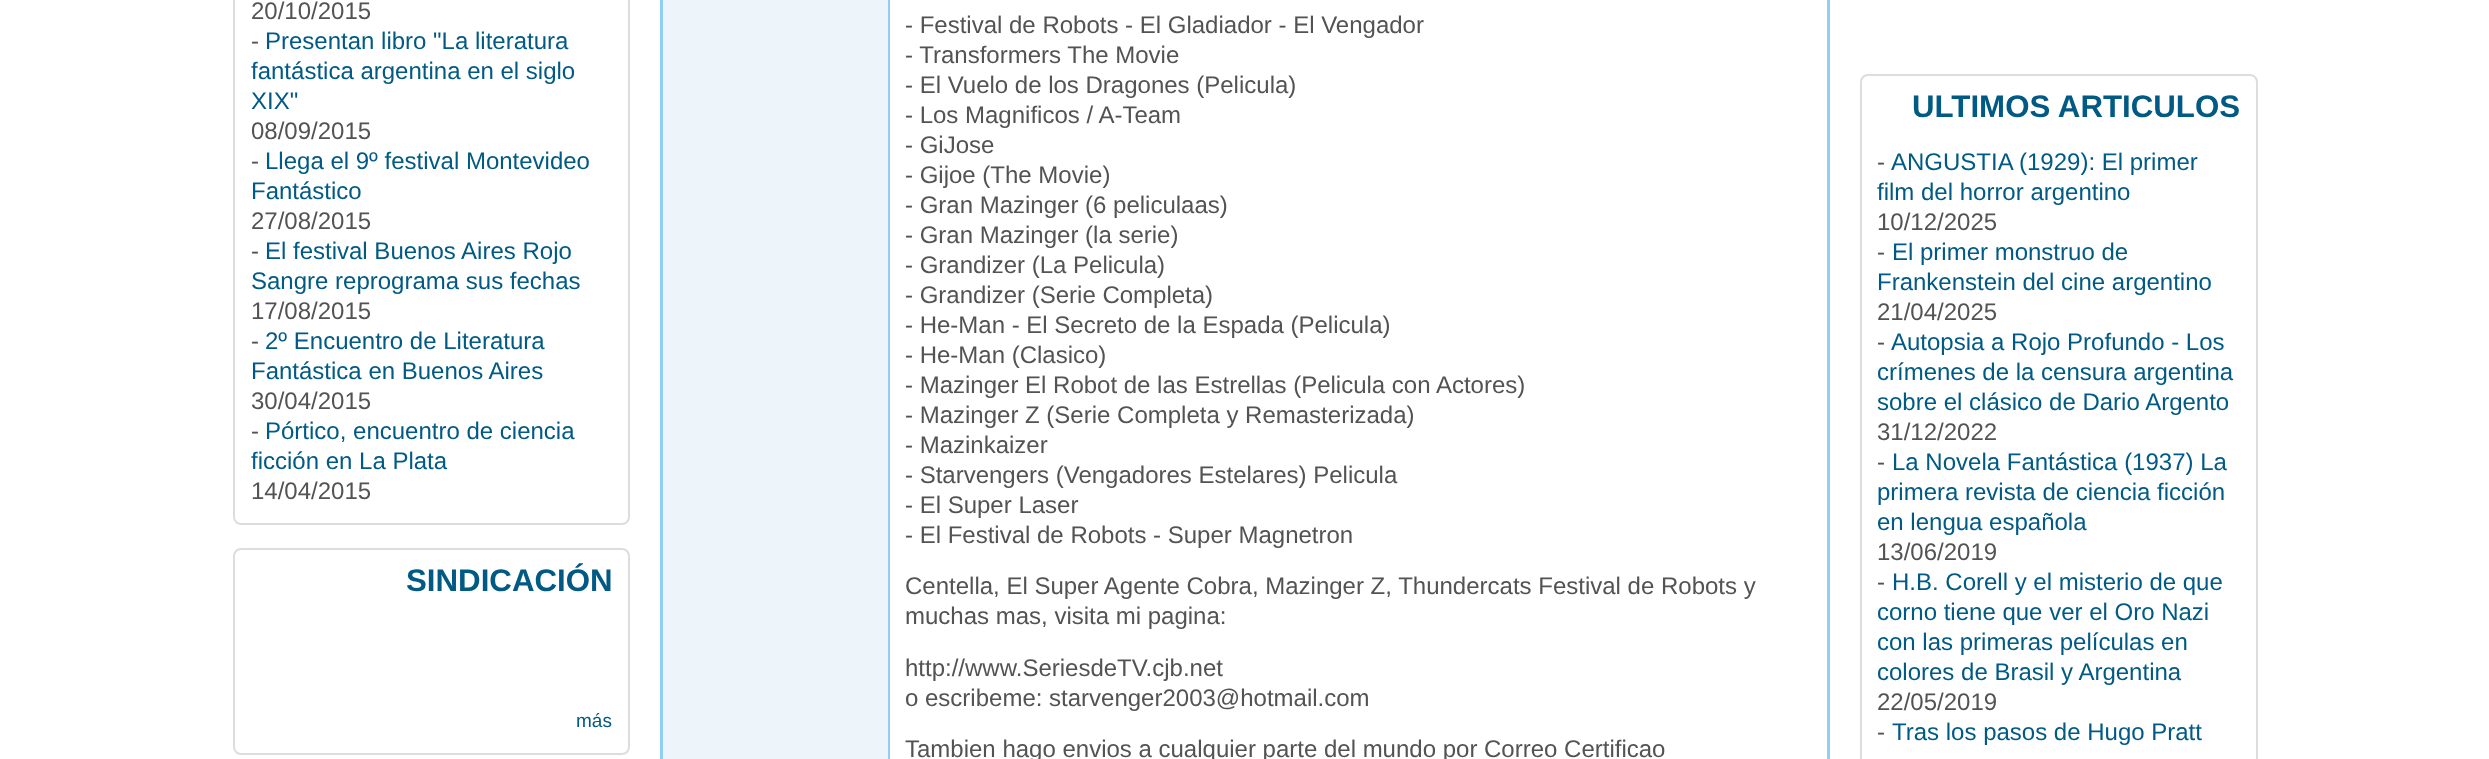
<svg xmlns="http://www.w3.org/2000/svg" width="2489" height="759">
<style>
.a{font:24px Liberation Sans;fill:#535353}
.b{font:24px Liberation Sans;fill:#005a84}
.c{font:bold 31.25px Liberation Sans;fill:#005a84}
.d{font:19px Liberation Sans;fill:#005a84}
</style>
<rect width="100%" height="100%" fill="#fff"/>
<rect fill="none" stroke="#ddd" stroke-width="2" x="234" y="-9" width="395" height="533" rx="7"/>
<rect fill="none" stroke="#ddd" stroke-width="2" x="234" y="549" width="395" height="205" rx="7"/>
<path fill="none" stroke="#91cdf5" stroke-width="3" d="M661.5 -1.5h1167v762H661.5z"/>
<path fill="#edf5fa" d="M663 0h225v759H663z"/>
<path fill="#91cdf5" d="M888 0h2v759H888z"/>
<rect fill="none" stroke="#ddd" stroke-width="2" x="1861" y="75" width="396" height="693" rx="7"/>
<text class="a" x="251" y="19">20/10/2015</text>
<text class="a" x="251" y="49">-</text>
<text class="b" x="265" y="49">Presentan libro "La literatura</text>
<text class="b" x="251" y="79">fantástica argentina en el siglo</text>
<text class="b" x="251" y="109">XIX"</text>
<text class="a" x="251" y="139">08/09/2015</text>
<text class="a" x="251" y="169">-</text>
<text class="b" x="265" y="169">Llega el 9º festival Montevideo</text>
<text class="b" x="251" y="199">Fantástico</text>
<text class="a" x="251" y="229">27/08/2015</text>
<text class="a" x="251" y="259">-</text>
<text class="b" x="265" y="259">El festival Buenos Aires Rojo</text>
<text class="b" x="251" y="289">Sangre reprograma sus fechas</text>
<text class="a" x="251" y="319">17/08/2015</text>
<text class="a" x="251" y="349">-</text>
<text class="b" x="265" y="349">2º Encuentro de Literatura</text>
<text class="b" x="251" y="379">Fantástica en Buenos Aires</text>
<text class="a" x="251" y="409">30/04/2015</text>
<text class="a" x="251" y="439">-</text>
<text class="b" x="265" y="439">Pórtico, encuentro de ciencia</text>
<text class="b" x="251" y="469">ficción en La Plata</text>
<text class="a" x="251" y="499">14/04/2015</text>
<text class="c" x="406" y="591">SINDICACIÓN</text>
<text class="d" x="576" y="727">más</text>
<text class="a" x="905" y="33">- Festival de Robots - El Gladiador - El Vengador</text>
<text class="a" x="905" y="63">- Transformers The Movie</text>
<text class="a" x="905" y="93">- El Vuelo de los Dragones (Pelicula)</text>
<text class="a" x="905" y="123">- Los Magnificos / A-Team</text>
<text class="a" x="905" y="153">- GiJose</text>
<text class="a" x="905" y="183">- Gijoe (The Movie)</text>
<text class="a" x="905" y="213">- Gran Mazinger (6 peliculaas)</text>
<text class="a" x="905" y="243">- Gran Mazinger (la serie)</text>
<text class="a" x="905" y="273">- Grandizer (La Pelicula)</text>
<text class="a" x="905" y="303">- Grandizer (Serie Completa)</text>
<text class="a" x="905" y="333">- He-Man - El Secreto de la Espada (Pelicula)</text>
<text class="a" x="905" y="363">- He-Man (Clasico)</text>
<text class="a" x="905" y="393">- Mazinger El Robot de las Estrellas (Pelicula con Actores)</text>
<text class="a" x="905" y="423">- Mazinger Z (Serie Completa y Remasterizada)</text>
<text class="a" x="905" y="453">- Mazinkaizer</text>
<text class="a" x="905" y="483">- Starvengers (Vengadores Estelares) Pelicula</text>
<text class="a" x="905" y="513">- El Super Laser</text>
<text class="a" x="905" y="543">- El Festival de Robots - Super Magnetron</text>
<text class="a" x="905" y="594">Centella, El Super Agente Cobra, Mazinger Z, Thundercats Festival de Robots y</text>
<text class="a" x="905" y="624">muchas mas, visita mi pagina:</text>
<text class="a" x="905" y="676">http://www.SeriesdeTV.cjb.net</text>
<text class="a" x="905" y="706">o escribeme: starvenger2003@hotmail.com</text>
<text class="a" x="905" y="757">Tambien hago envios a cualquier parte del mundo por Correo Certificao</text>
<text class="c" x="1912" y="117">ULTIMOS ARTICULOS</text>
<text class="a" x="1877" y="170">-</text>
<text class="b" x="1891" y="170">ANGUSTIA (1929): El primer</text>
<text class="b" x="1877" y="200">film del horror argentino</text>
<text class="a" x="1877" y="230">10/12/2025</text>
<text class="a" x="1877" y="260">-</text>
<text class="b" x="1892" y="260">El primer monstruo de</text>
<text class="b" x="1877" y="290">Frankenstein del cine argentino</text>
<text class="a" x="1877" y="320">21/04/2025</text>
<text class="a" x="1877" y="350">-</text>
<text class="b" x="1891" y="350">Autopsia a Rojo Profundo - Los</text>
<text class="b" x="1877" y="380">crímenes de la censura argentina</text>
<text class="b" x="1877" y="410">sobre el clásico de Dario Argento</text>
<text class="a" x="1877" y="440">31/12/2022</text>
<text class="a" x="1877" y="470">-</text>
<text class="b" x="1892" y="470">La Novela Fantástica (1937) La</text>
<text class="b" x="1877" y="500">primera revista de ciencia ficción</text>
<text class="b" x="1877" y="530">en lengua española</text>
<text class="a" x="1877" y="560">13/06/2019</text>
<text class="a" x="1877" y="590">-</text>
<text class="b" x="1892" y="590">H.B. Corell y el misterio de que</text>
<text class="b" x="1877" y="620">corno tiene que ver el Oro Nazi</text>
<text class="b" x="1877" y="650">con las primeras películas en</text>
<text class="b" x="1877" y="680">colores de Brasil y Argentina</text>
<text class="a" x="1877" y="710">22/05/2019</text>
<text class="a" x="1877" y="740">-</text>
<text class="b" x="1892" y="740">Tras los pasos de Hugo Pratt</text>
</svg>
